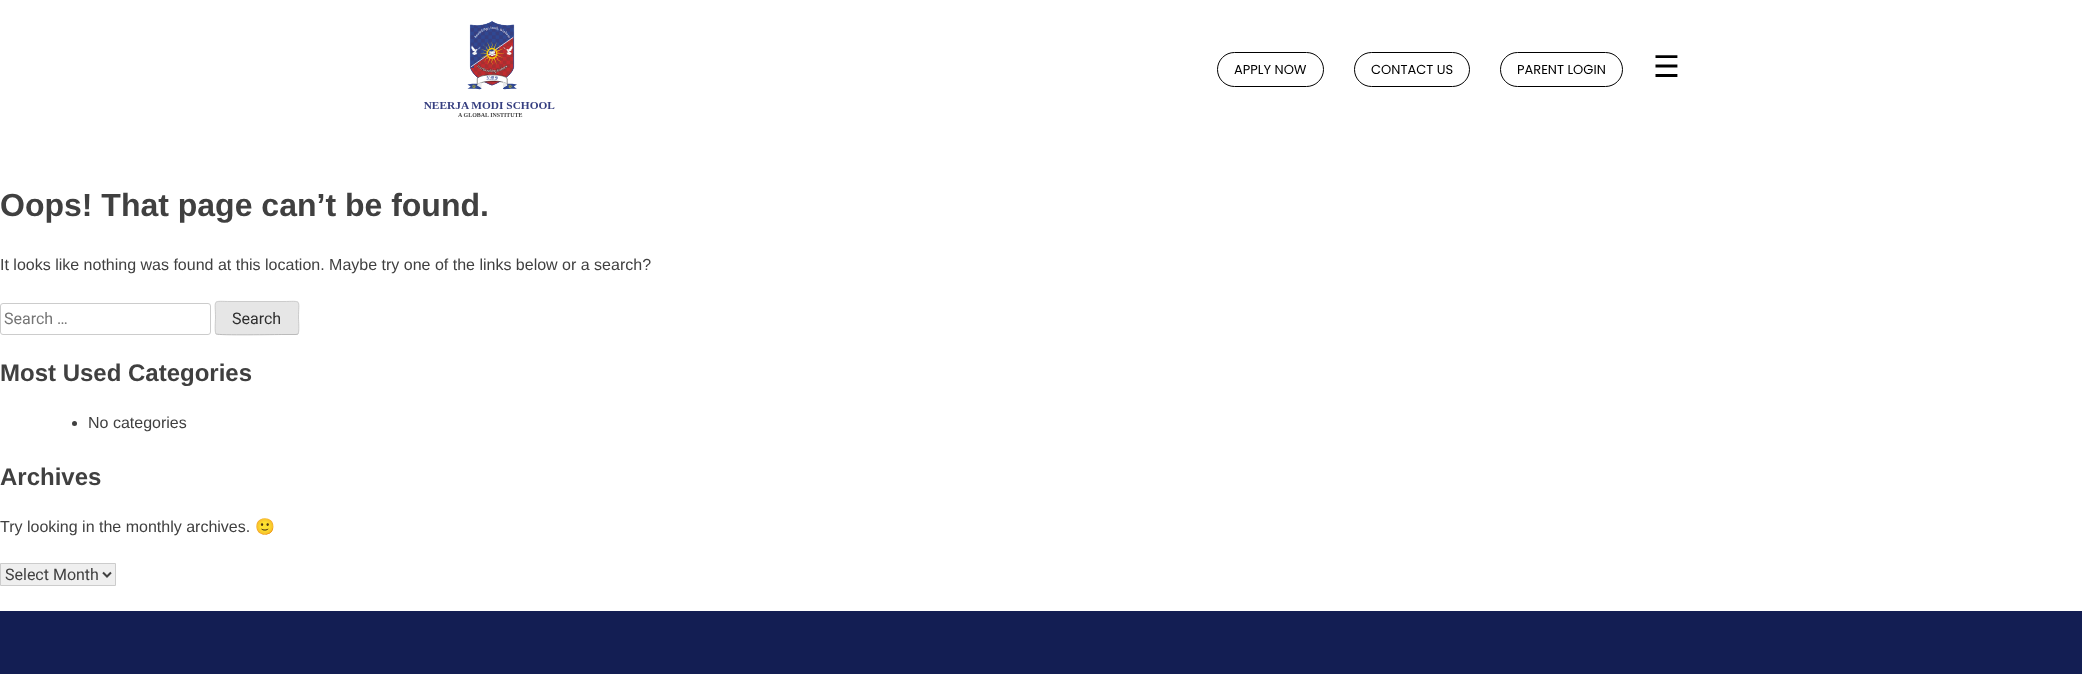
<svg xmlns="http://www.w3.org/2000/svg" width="2082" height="674">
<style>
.a{font:13px Poppins;fill:#000}
.b{font:30px DejaVu Sans;fill:#000}
.c{font:bold 32px Liberation Sans;fill:#404040}
.d{font:16px Liberation Sans;fill:#404040}
.e{font:16px Roboto;fill:#757575}
.f{font:16px Roboto;fill:#2e2e2e}
.g{font:bold 24px Liberation Sans;fill:#404040}
.h{font:16px Noto Color Emoji;fill:#404040}
.i{font:16px Roboto;fill:#404040}
</style>
<rect width="100%" height="100%" fill="#fff"/>
<image href="1.png" x="424" y="21" width="131" height="96"/>
<rect fill="none" stroke="#000" x="1217.5" y="52.5" width="106" height="34" rx="17"/>
<rect fill="none" stroke="#000" x="1354.5" y="52.5" width="115" height="34" rx="17"/>
<rect fill="none" stroke="#000" x="1500.5" y="52.5" width="122" height="34" rx="17"/>
<rect fill="none" stroke="#ccc" x="0.5" y="303.5" width="210" height="31" rx="2.5"/>
<rect fill="#e6e6e6" x="215" y="301" width="84" height="34" rx="3"/>
<path fill="none" stroke="#bbb" d="M298 334l-2 .5h-13c-7 0-64.5 1-66.5-.5h-.5"/>
<path fill="none" stroke="#ccc" d="M216 334c-1.5-2-.5-13.5-.5-16c0-19.5-4-16.5 15.5-16.5h52c19.5 0 15.5-3 15.5 16.5c0 2.5 1 14-.5 16"/>
<circle fill="#404040" cx="74.5" cy="423.5" r="2.5"/>
<path fill="#efefef" stroke="#ccc" d="M0.5 563.5h115v22H0.5z"/>
<path fill="none" stroke="#404040" stroke-width="2" d="M103 572.5l4 4l4-4"/>
<path fill="#131e53" d="M0 611h2082v63H0z"/>
<text class="a" x="1234" y="74">APPLY NOW</text>
<text class="a" x="1371" y="74">CONTACT US</text>
<text class="a" x="1517" y="74">PARENT LOGIN</text>
<text class="b" x="1653" y="77">☰</text>
<text class="c" x="0" y="216">Oops! That page can’t be found.</text>
<text class="d" x="0" y="270">It looks like nothing was found at this location. Maybe try one of the links below or a search?</text>
<text class="e" x="4" y="324">Search …</text>
<text class="f" x="232" y="324">Search</text>
<text class="g" x="0" y="381">Most Used Categories</text>
<text class="d" x="88" y="428">No categories</text>
<text class="g" x="0" y="485">Archives</text>
<text class="d" x="0" y="532">Try looking in the monthly archives.</text>
<text class="h" x="255" y="532">🙂</text>
<text class="i" x="5" y="580">Select Month</text>
</svg>
